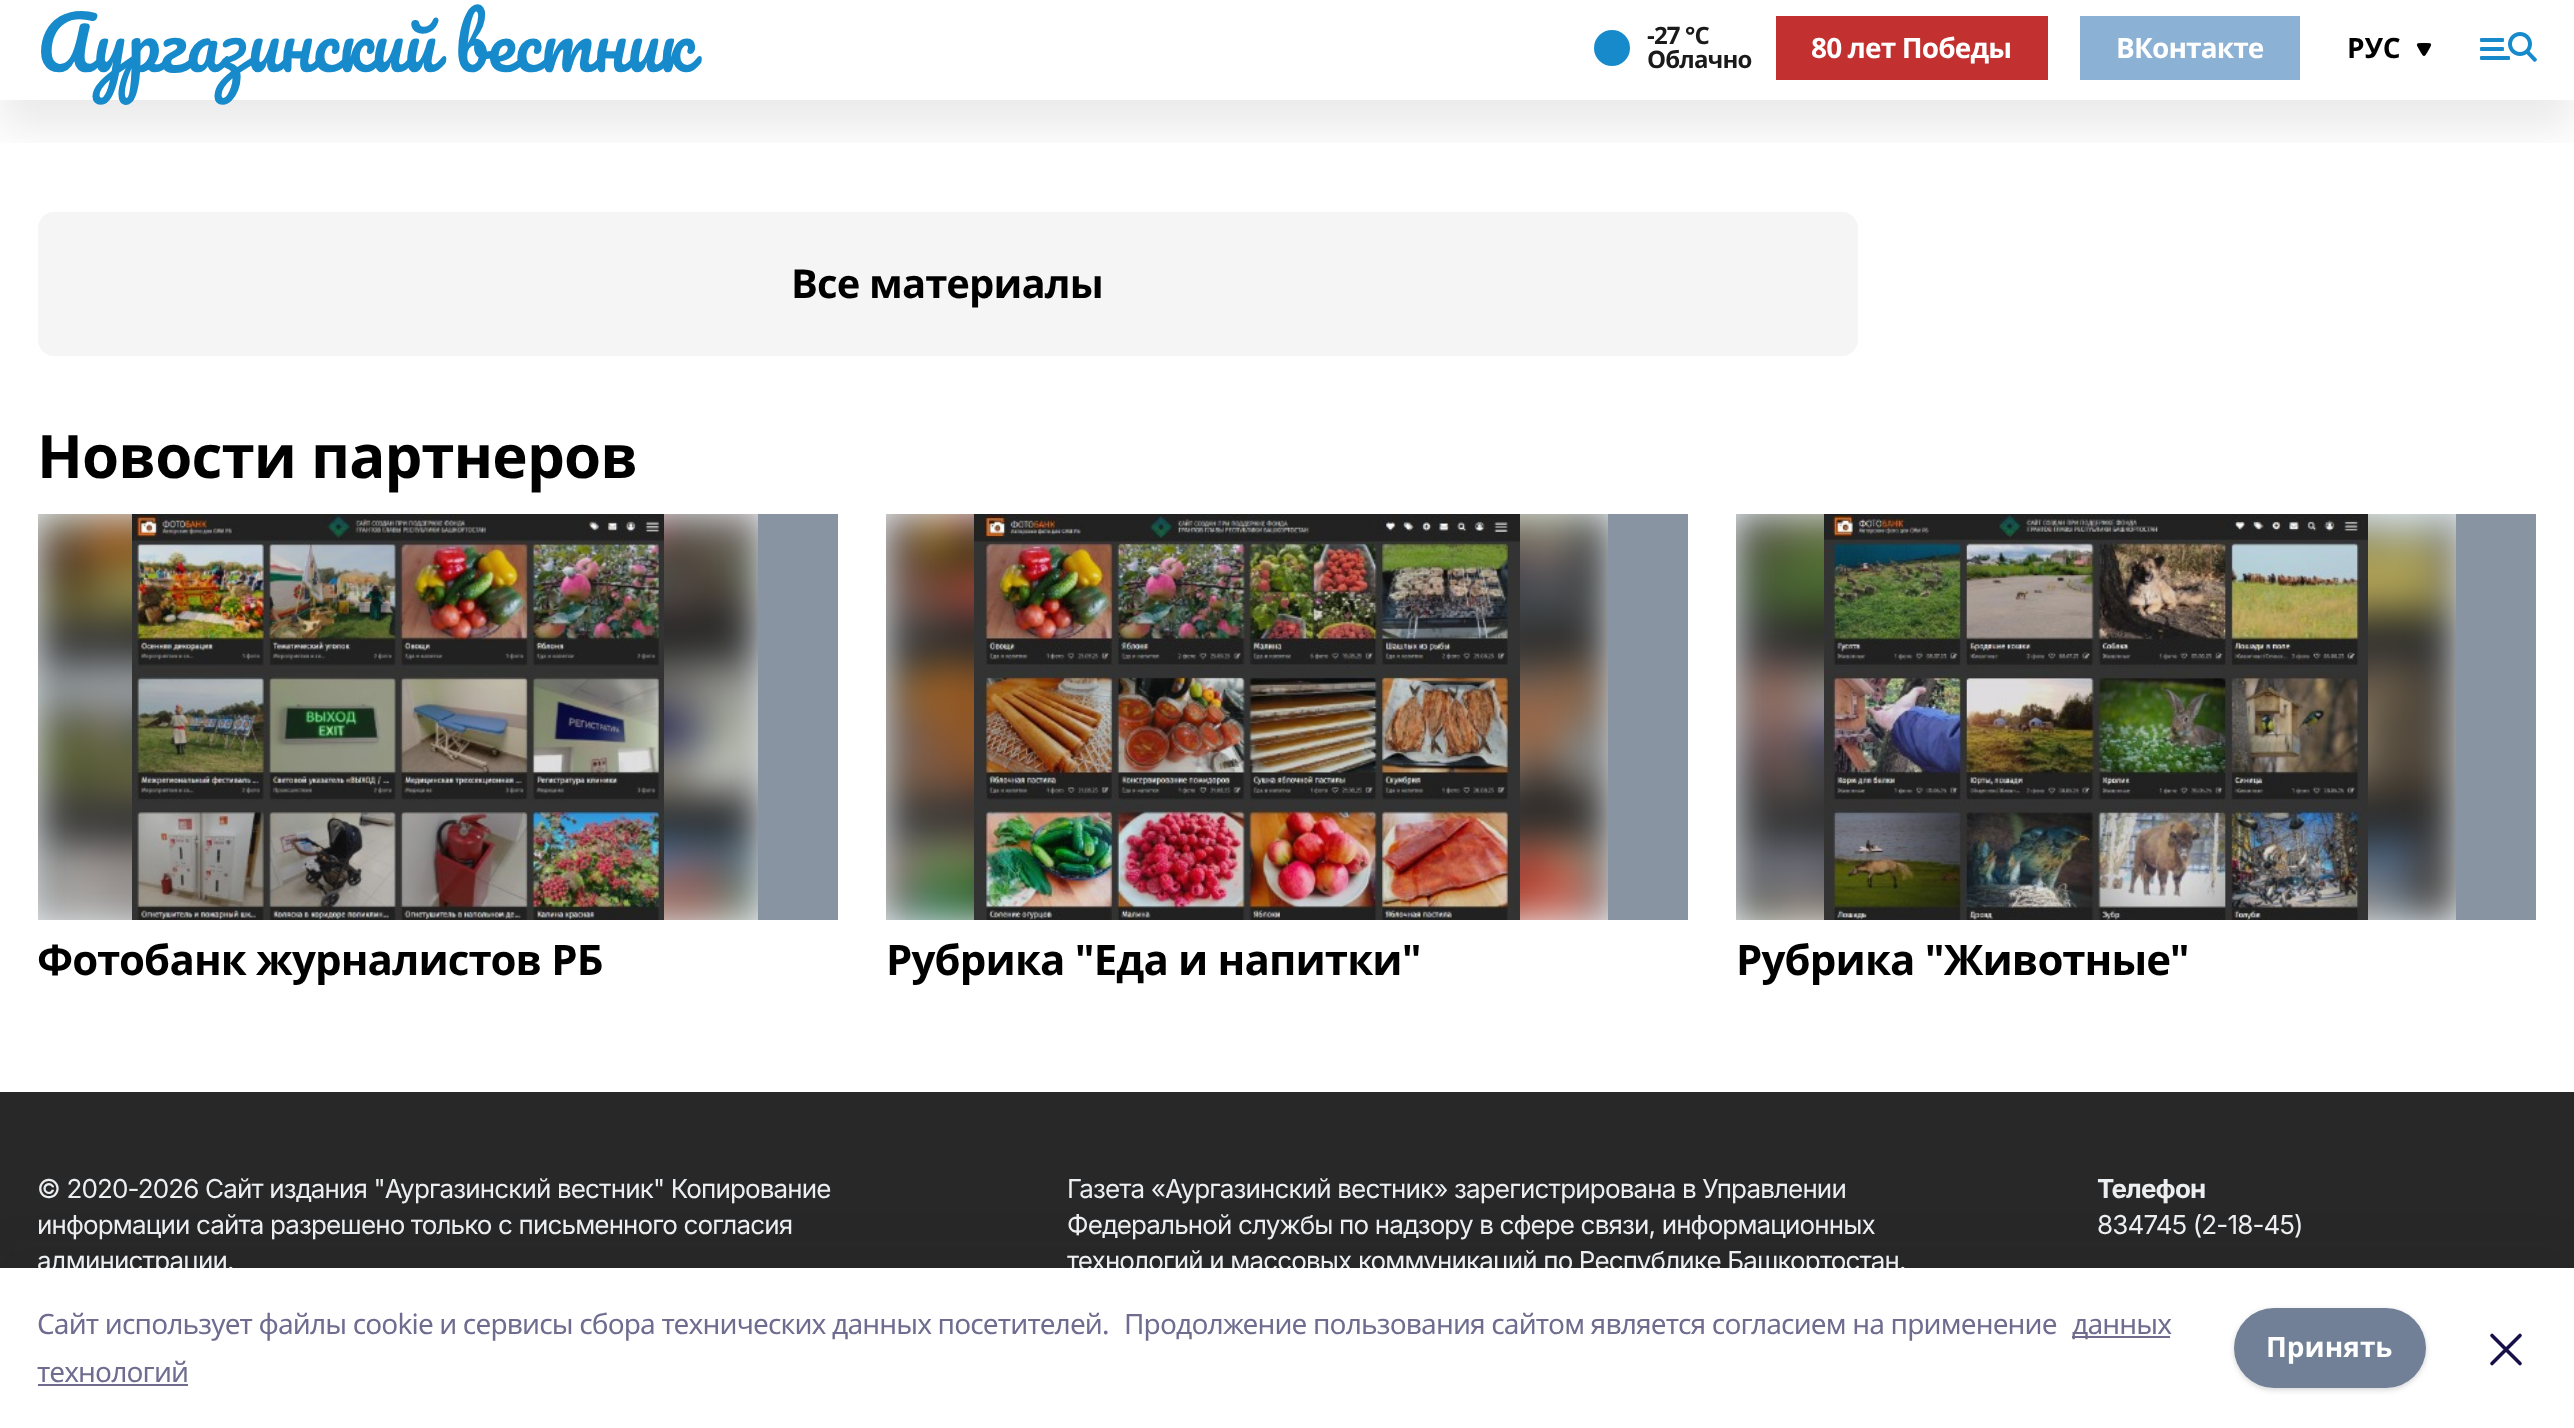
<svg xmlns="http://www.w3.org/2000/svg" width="2574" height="1428">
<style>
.a{font:72px Pacifico;letter-spacing:-0.85px;fill:#178acb}
.b{font:bold 24px Noto Sans;letter-spacing:-0.85px;fill:#1a1a1a}
.c{font:bold 28px Noto Sans;letter-spacing:-0.85px;fill:#fff}
.d{font:bold 28px Noto Sans;fill:#000}
.e{font:bold 40px Noto Sans;letter-spacing:-0.85px;fill:#000}
.f{font:bold 60px Noto Sans;letter-spacing:-0.85px;fill:#000}
.g{font:bold 42px Noto Sans;letter-spacing:-0.85px;fill:#000}
.h{font:26px Inter;letter-spacing:-0.85px;fill:#eceff1}
.i{font:bold 26px Inter;letter-spacing:-0.85px;fill:#eceff1}
.j{font:28px Noto Sans;letter-spacing:-0.85px;fill:#6f6c90}
.k{font:bold 28px Noto Sans;fill:#fff}
</style>
<defs>
<clipPath id="clip1"><path d="M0 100h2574v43H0z"/></clipPath>
</defs>
<rect width="100%" height="100%" fill="#fff"/>
<g clip-path="url(#clip1)">
<path fill="#00000014" filter="blur(20px)" d="M0 30h2574v100H0z"/>
</g>
<circle fill="#178acb" cx="1612" cy="48" r="18"/>
<path fill="#c23030" d="M1776 16h272v64H1776z"/>
<path fill="#8bb1d4" d="M2080 16h220v64H2080z"/>
<image href="1.png" x="2416" y="43" width="16" height="13"/>
<image href="2.png" x="2480" y="32" width="57" height="30"/>
<rect fill="#f5f5f5" x="38" y="212" width="1820" height="144" rx="16"/>
<path fill="#8894a2" d="M758 514h80v406H758z"/>
<path fill="#edf2f7" d="M38 514h720v406H38z"/>
<image href="3.png" x="38" y="514" width="720" height="406"/>
<image href="4.png" x="132" y="514" width="532" height="406"/>
<path fill="#8894a2" d="M1608 514h80v406H1608z"/>
<path fill="#edf2f7" d="M886 514h722v406H886z"/>
<image href="5.png" x="886" y="514" width="722" height="406"/>
<image href="6.png" x="974" y="514" width="546" height="406"/>
<path fill="#8894a2" d="M2456 514h80v406H2456z"/>
<path fill="#edf2f7" d="M1736 514h720v406H1736z"/>
<image href="7.png" x="1736" y="514" width="720" height="406"/>
<image href="8.png" x="1824" y="514" width="544" height="406"/>
<path fill="#282828" d="M0 1092h2574v176H0z"/>
<path fill="#14142b14" filter="blur(23px)" d="M0 1256h2574v160H0z"/>
<text class="a" x="37" y="72">Аургазинский вестник</text>
<text class="b" x="1647" y="44">-27 °С</text>
<text class="b" x="1647" y="68">Облачно</text>
<text class="c" x="1811" y="58">80 лет Победы</text>
<text class="c" x="2116" y="58">ВКонтакте</text>
<text class="d" x="2347" y="58">РУС</text>
<text class="e" x="791" y="298">Все материалы</text>
<text class="f" x="37" y="478">Новости партнеров</text>
<text class="g" x="37" y="975">Фотобанк журналистов РБ</text>
<text class="g" x="886" y="975">Рубрика "Еда и напитки"</text>
<text class="g" x="1736" y="975">Рубрика "Животные"</text>
<text class="h" x="37" y="1198">© 2020-2026 Сайт издания "Аургазинский вестник" Копирование</text>
<text class="h" x="37" y="1234">информации сайта разрешено только с письменного согласия</text>
<text class="h" x="37" y="1270">администрации.</text>
<text class="h" x="1067" y="1198">Газета «Аургазинский вестник» зарегистрирована в Управлении</text>
<text class="h" x="1067" y="1234">Федеральной службы по надзору в сфере связи, информационных</text>
<text class="h" x="1067" y="1270">технологий и массовых коммуникаций по Республике Башкортостан.</text>
<text class="i" x="2097" y="1198">Телефон</text>
<text class="h" x="2097" y="1234">834745 (2-18-45)</text>
<path fill="#fff" d="M0 1268h2574v160H0z"/>
<text class="j" x="37" y="1334">Cайт использует файлы cookie и сервисы сбора технических данных посетителей.</text>
<text class="j" x="1124" y="1334">Продолжение пользования сайтом является согласием на применение</text>
<path fill="#6f6c90" d="M2072 1336h98v2H2072z"/>
<text class="j" x="2072" y="1334">данных</text>
<text class="j" x="37" y="1382">технологий</text>
<path fill="#6f6c90" d="M38 1384h150v2H38z"/>
<rect fill="#0000000f" filter="blur(2px)" x="2234" y="1310" width="192" height="80" rx="40"/>
<rect fill="#0000001a" filter="blur(3px)" x="2234" y="1310" width="192" height="80" rx="40"/>
<rect fill="#718096" x="2234" y="1308" width="192" height="80" rx="40"/>
<text class="k" x="2266" y="1357">Принять</text>
<path fill="none" stroke="#170f49" stroke-width="3.6" stroke-linecap="round" stroke-linejoin="round" d="M2492 1363.5l28-28m0 28l-28-28"/>
</svg>
